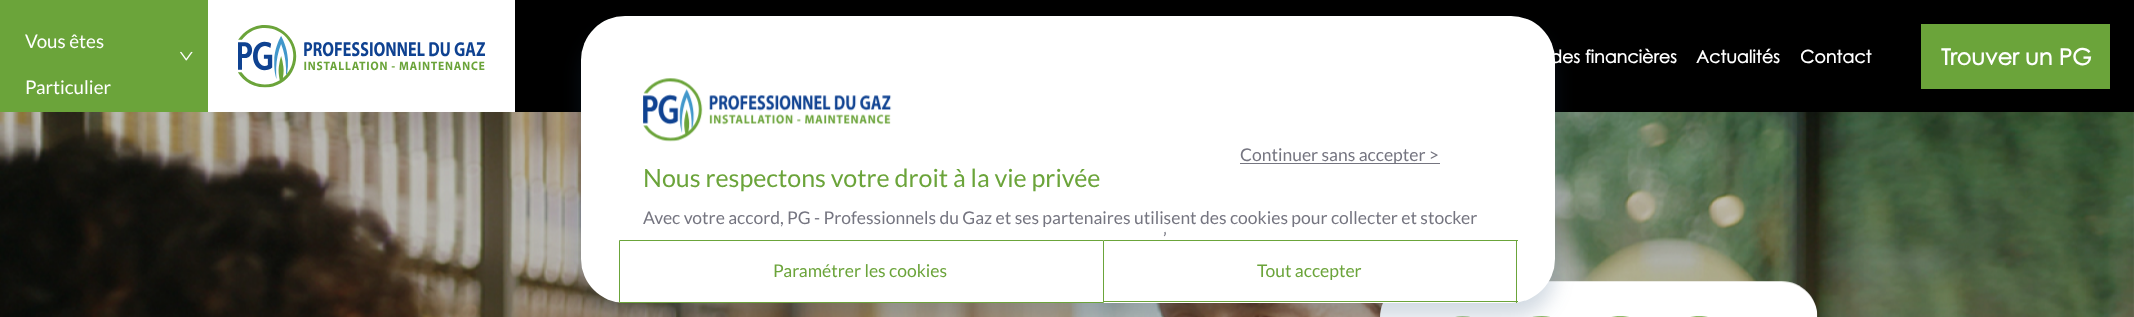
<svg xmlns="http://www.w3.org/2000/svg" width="2134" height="317">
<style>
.a{font:18.75px Lato;fill:#fff}
.b{font:bold 17.5px Century Gothic;fill:#fff}
.c{font:bold 22.5px Century Gothic;fill:#fff}
.d{font:17.5px Lato;fill:#757580}
.e{font:25px Lato;fill:#6ba43a}
.f{font:17.5px Lato;fill:#6ba43a}
</style>
<rect width="100%" height="100%" fill="#000"/>
<path fill="#6ba43a" d="M0 0h208v112H0z"/>
<image href="1.png" x="180" y="51" width="13" height="10"/>
<path fill="#fff" d="M208 0h307v112H208z"/>
<image href="2.png" x="238" y="25" width="247" height="63"/>
<path fill="#6ba43a" d="M1921 24h189v65H1921z"/>
<image href="3.png" x="0" y="112" width="2134" height="205"/>
<image href="4.png" x="1380" y="281" width="438" height="36"/>
<rect fill="#214b7333" filter="blur(9.5px)" x="581" y="31" width="974" height="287" rx="44"/>
<rect fill="#fff" x="581" y="16" width="974" height="287" rx="44"/>
<image href="5.png" x="643" y="78" width="249" height="64"/>
<path fill="#757580" d="M1240 163h200v1H1240z"/>
<path fill="none" stroke="#6ba43a" d="M619.5 240.5h484v62H619.5z"/>
<path fill="#6ba43a" d="M1104 240h414v1H1104z"/>
<path fill="#6ba43a" d="M1516 240h1v63H1516z"/>
<path fill="#6ba43a" d="M1104 301h414v1H1104z"/>
<text class="a" x="25" y="48">Vous êtes</text>
<text class="a" x="25" y="94">Particulier</text>
<text class="b" x="1550" y="63">des financières</text>
<text class="b" x="1696" y="63">Actualités</text>
<text class="b" x="1800" y="63">Contact</text>
<text class="c" x="1941" y="65">Trouver un PG</text>
<text class="d" x="1240" y="161">Continuer sans accepter &gt;</text>
<text class="e" x="643" y="187">Nous respectons votre droit à la vie privée</text>
<text class="d" x="643" y="224">Avec votre accord, PG - Professionnels du Gaz et ses partenaires utilisent des cookies pour collecter et stocker</text>
<text class="d" x="1163" y="245">’</text>
<text class="f" x="773" y="277">Paramétrer les cookies</text>
<text class="f" x="1257" y="277">Tout accepter</text>
</svg>
